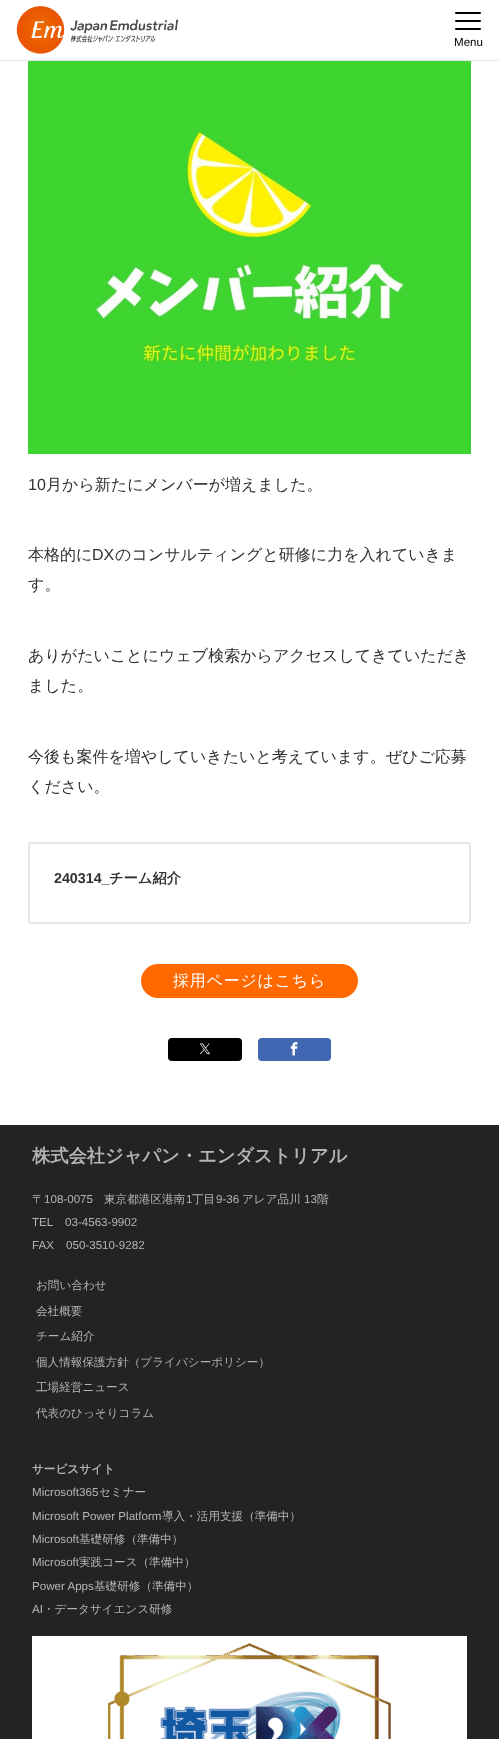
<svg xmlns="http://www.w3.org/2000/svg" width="499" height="1739">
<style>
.a{font:11.6px Liberation Sans;fill:#000}
.b{font:16px Liberation Sans;fill:#303030}
.c{font:500 16px WenQuanYi Zen Hei;fill:#303030}
.d{font:bold 14.25px Liberation Sans;fill:#303030}
.e{font:bold 14.25px WenQuanYi Zen Hei;fill:#303030}
.f{font:500 16px WenQuanYi Zen Hei;letter-spacing:0.75px;fill:#fff}
.g{font:bold 18.25px WenQuanYi Zen Hei;fill:#b5b5b5}
.h{font:500 11.6px WenQuanYi Zen Hei;fill:#b5b5b5}
.i{font:11.6px Liberation Sans;fill:#b5b5b5}
.j{font:bold 11.6px WenQuanYi Zen Hei;fill:#b5b5b5}
</style>
<rect width="100%" height="100%" fill="#fff"/>
<path fill="#e6e6e6" d="M0 60h499v1H0z"/>
<image href="1.png" x="16" y="6" width="163" height="48"/>
<rect fill="#000" x="455" y="12" width="26" height="2" rx="1"/>
<rect fill="#000" x="455" y="20" width="26" height="2" rx="1"/>
<rect fill="#000" x="455" y="28" width="26" height="2" rx="1"/>
<image href="2.png" x="28" y="61" width="443" height="393"/>
<rect fill="none" stroke="#e5e7e8" stroke-width="2" x="29" y="843" width="441" height="80" rx="2"/>
<rect fill="#ff6900" x="141" y="964" width="217" height="34" rx="17"/>
<rect fill="#000" x="168" y="1038" width="74" height="23" rx="4"/>
<image href="3.png" x="199" y="1043" width="11" height="12"/>
<rect fill="#4267b2" x="258" y="1038" width="73" height="23" rx="4"/>
<image href="4.png" x="290" y="1042" width="8" height="14"/>
<path fill="#232323" d="M0 1125h499v614H0z"/>
<path fill="#fff" d="M32 1636h435v103H32z"/>
<image href="5.png" x="108" y="1643" width="283" height="96"/>
<text class="a" x="454" y="46">Menu</text>
<text class="b" x="28" y="490">10</text>
<text class="c" x="46" y="490">月から新たにメンバーが増えました。</text>
<text class="c" x="28" y="560">本格的に</text>
<text class="b" x="92" y="560">DX</text>
<text class="c" x="115" y="560">のコンサルティングと研修に力を入れていきま</text>
<text class="c" x="28" y="590">す。</text>
<text class="c" x="28" y="661">ありがたいことにウェブ検索からアクセスしてきていただき</text>
<text class="c" x="28" y="691">ました。</text>
<text class="c" x="28" y="762">今後も案件を増やしていきたいと考えています。ぜひご応募</text>
<text class="c" x="28" y="792">ください。</text>
<text class="d" x="54" y="883">240314_</text>
<text class="e" x="109" y="883">チーム紹介</text>
<text class="f" x="173" y="986">採用ページはこちら</text>
<text class="g" x="32" y="1162">株式会社ジャパン・エンダストリアル</text>
<text class="h" x="32" y="1203">〒</text>
<text class="i" x="44" y="1203">108-0075</text>
<text class="h" x="104" y="1203">東京都港区港南</text>
<text class="i" x="186" y="1203">1</text>
<text class="h" x="192" y="1203">丁目</text>
<text class="i" x="216" y="1203">9-36</text>
<text class="h" x="242" y="1203">アレア品川</text>
<text class="i" x="304" y="1203">13</text>
<text class="h" x="317" y="1203">階</text>
<text class="i" x="32" y="1226">TEL</text>
<text class="i" x="65" y="1226">03-4563-9902</text>
<text class="i" x="32" y="1249">FAX</text>
<text class="i" x="66" y="1249">050-3510-9282</text>
<text class="h" x="36" y="1289">お問い合わせ</text>
<text class="h" x="36" y="1315">会社概要</text>
<text class="h" x="36" y="1340">チーム紹介</text>
<text class="h" x="36" y="1366">個人情報保護方針（プライバシーポリシー）</text>
<text class="h" x="36" y="1391">工場経営ニュース</text>
<text class="h" x="36" y="1417">代表のひっそりコラム</text>
<text class="j" x="32" y="1473">サービスサイト</text>
<text class="i" x="32" y="1496">Microsoft365</text>
<text class="h" x="99" y="1496">セミナー</text>
<text class="i" x="32" y="1520">Microsoft Power Platform</text>
<text class="h" x="162" y="1520">導入・活用支援（準備中）</text>
<text class="i" x="32" y="1543">Microsoft</text>
<text class="h" x="79" y="1543">基礎研修（準備中）</text>
<text class="i" x="32" y="1566">Microsoft</text>
<text class="h" x="79" y="1566">実践コース（準備中）</text>
<text class="i" x="32" y="1590">Power Apps</text>
<text class="h" x="94" y="1590">基礎研修（準備中）</text>
<text class="i" x="32" y="1613">AI</text>
<text class="h" x="43" y="1613">・データサイエンス研修</text>
</svg>
